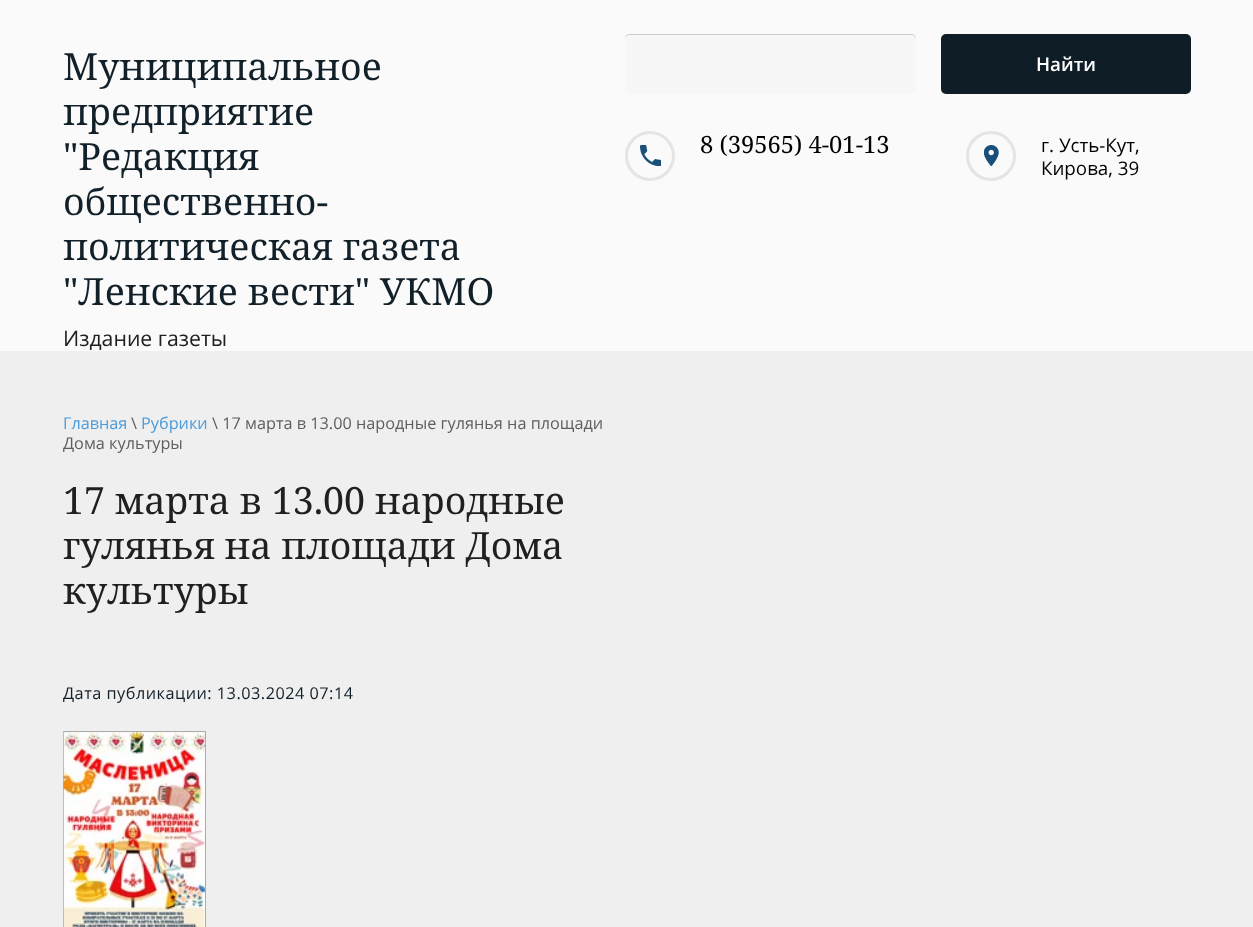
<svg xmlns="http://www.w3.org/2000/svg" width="1253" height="927">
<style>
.a{font:37.5px Noto Serif;fill:#122029}
.b{font:21.25px Open Sans;fill:#202020}
.c{font:600 18.75px Open Sans;fill:#fff}
.d{font:23.75px Noto Serif;fill:#000}
.e{font:18.75px Open Sans;fill:#000}
.f{font:16.25px Open Sans;fill:#4a9bd9}
.g{font:16.25px Open Sans;fill:#5e5e5e}
.h{font:37.5px Noto Serif;fill:#202020}
.i{font:16.25px Open Sans;letter-spacing:0.5px;fill:#122029}
</style>
<rect width="100%" height="100%" fill="#fafafa"/>
<rect fill="#f7f7f7" x="625" y="34" width="291" height="60" rx="5"/>
<path fill="#ccc" d="M630 35h281c3 0 5 2 5 5v-1c0-3-2-5-5-5h-281c-3 0-5 2-5 5v1c0-3 2-5 5-5z"/>
<rect fill="#0e1d26" x="941" y="34" width="250" height="60" rx="5"/>
<image href="1.png" x="640" y="145" width="21" height="21"/>
<circle fill="none" stroke="#e4e4e4" stroke-width="3" cx="650" cy="156" r="23.5"/>
<image href="2.png" x="984" y="145" width="15" height="21"/>
<circle fill="none" stroke="#e4e4e4" stroke-width="3" cx="991" cy="156" r="23.5"/>
<path fill="#efeff0" d="M0 351h1253v576H0z"/>
<path fill="none" stroke="#aaa" d="M63.5 731.5h142v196H63.5z"/>
<image href="3.png" x="63" y="732" width="142" height="195"/>
<text class="a" x="63" y="80">Муниципальное</text>
<text class="a" x="63" y="125">предприятие</text>
<text class="a" x="63" y="170">"Редакция</text>
<text class="a" x="63" y="215">общественно-</text>
<text class="a" x="63" y="260">политическая газета</text>
<text class="a" x="63" y="305">"Ленские вести" УКМО</text>
<text class="b" x="63" y="346">Издание газеты</text>
<text class="c" x="1036" y="71">Найти</text>
<text class="d" x="700" y="153">8 (39565) 4-01-13</text>
<text class="e" x="1041" y="152">г. Усть-Кут,</text>
<text class="e" x="1041" y="175">Кирова, 39</text>
<text class="f" x="63" y="429">Главная</text>
<text class="g" x="131" y="429">\</text>
<text class="f" x="141" y="429">Рубрики</text>
<text class="g" x="212" y="429">\ 17 марта в 13.00 народные гулянья на площади</text>
<text class="g" x="63" y="449">Дома культуры</text>
<text class="h" x="63" y="514">17 марта в 13.00 народные</text>
<text class="h" x="63" y="559">гулянья на площади Дома</text>
<text class="h" x="63" y="604">культуры</text>
<text class="i" x="63" y="699">Дата публикации: 13.03.2024 07:14</text>
</svg>
